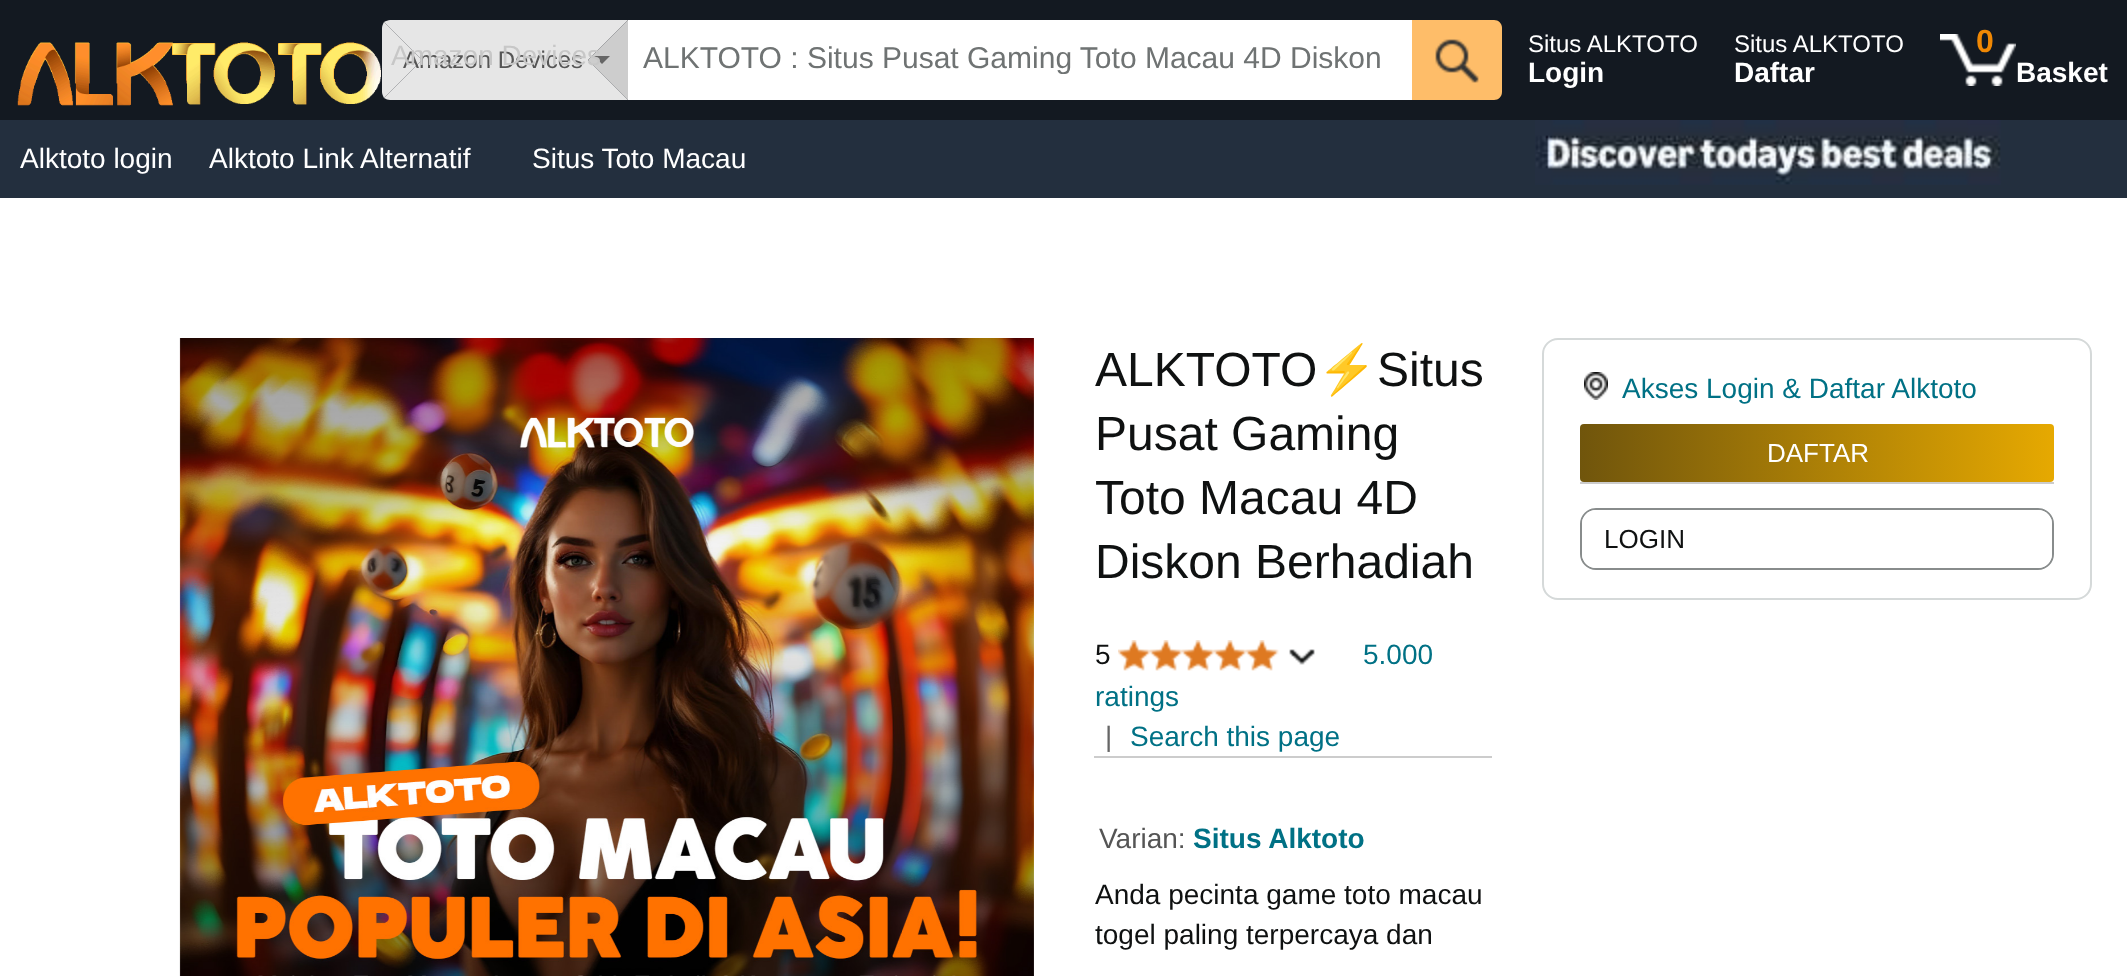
<svg xmlns="http://www.w3.org/2000/svg" width="2127" height="976">
<style>
.a{font:24px Liberation Sans;fill:#555}
.b{font:28px Liberation Sans;fill:#c7c7c7}
.c{font:30px Liberation Sans;fill:#6f7373}
.d{font:24px Liberation Sans;fill:#fff}
.e{font:bold 28px Liberation Sans;fill:#fff}
.f{font:bold 32px Liberation Sans;fill:#f08804}
.g{font:28px Liberation Sans;fill:#fff}
.h{font:48px Liberation Sans;fill:#0f1111}
.i{font:48px Noto Color Emoji;fill:#0f1111}
.j{font:28px Liberation Sans;fill:#0f1111}
.k{font:28px Liberation Sans;fill:#007185}
.l{font:28px Liberation Sans;fill:#666}
.m{font:28px Liberation Sans;fill:#555}
.n{font:bold 28px Liberation Sans;fill:#007185}
.o{font:26px Liberation Sans;fill:#fff}
.p{font:26px Liberation Sans;fill:#0f1111}
</style>
<defs>
<linearGradient id="g1" gradientUnits="userSpaceOnUse" x1="1580" y1="453" x2="2054" y2="453"><stop offset="0" stop-color="#70550c"/><stop offset="1" stop-color="#e6a901"/></linearGradient>
<clipPath id="clip1"><path d="M628 40h764v34H628z"/></clipPath>
</defs>
<rect width="100%" height="100%" fill="#fff"/>
<path fill="#131921" d="M0 0h2127v120H0z"/>
<image href="1.png" x="17" y="42" width="364" height="64"/>
<path fill="#e6e6e6" d="M390 20h238l-40 40h-166l-38-38c2-1 4-2 6-2z"/>
<path fill="#cdcdcd" d="M628 20l-40 40l40 40z"/>
<path fill="#e6e6e6" d="M628 100h-238c-2 0-4-1-6-2l38-38h166z"/>
<path fill="#e6e6e6" d="M384 98l38-38l-38-38c-1 2-2 4-2 6v64c0 2 1 4 2 6z"/>
<path fill="#666" d="M594 56h16l-8 8z"/>
<path fill="#fff" d="M628 20h784v80H628z"/>
<path fill="#febd69" d="M1412 20h82c4.5 0 8 3.5 8 8v64c0 4.5-3.5 8-8 8h-82z"/>
<image href="2.png" x="1435" y="39" width="44" height="44"/>
<image href="3.png" x="1940" y="34" width="76" height="52"/>
<path fill="#232f3e" d="M0 120h2127v78H0z"/>
<image href="4.png" x="1535" y="120" width="466" height="65"/>
<image href="5.png" x="179" y="338" width="855" height="638"/>
<image href="6.png" x="1118" y="640" width="161" height="31"/>
<image href="7.png" x="1289" y="649" width="26" height="16"/>
<path fill="#ccc" d="M1094 756h398v2H1094z"/>
<rect fill="none" stroke="#d5d9d9" stroke-width="2" x="1543" y="339" width="548" height="260" rx="15"/>
<image href="8.png" x="1584" y="372" width="24" height="28"/>
<rect fill="url(#g1)" x="1580" y="424" width="474" height="58" rx="4"/>
<path fill="#ccc" d="M1580 482h474v2H1580z"/>
<rect fill="none" stroke="#888c8c" stroke-width="2" x="1581" y="509" width="472" height="60" rx="15"/>
<rect fill="#fff" x="1582" y="510" width="470" height="58" rx="14"/>
<text class="a" x="403" y="68">Amazon Devices</text>
<text class="b" x="391" y="65">Amazon Devices</text>
<g clip-path="url(#clip1)">
<text class="c" x="643" y="68">ALKTOTO : Situs Pusat Gaming Toto Macau 4D Diskon</text>
</g>
<text class="d" x="1528" y="52">Situs ALKTOTO</text>
<text class="e" x="1528" y="82">Login</text>
<text class="d" x="1734" y="52">Situs ALKTOTO</text>
<text class="e" x="1734" y="82">Daftar</text>
<text class="f" x="1976" y="52">0</text>
<text class="e" x="2016" y="82">Basket</text>
<text class="g" x="20" y="168">Alktoto login</text>
<text class="g" x="209" y="168">Alktoto Link Alternatif</text>
<text class="g" x="532" y="168">Situs Toto Macau</text>
<text class="h" x="1095" y="386">ALKTOTO</text>
<text class="i" x="1317" y="386">⚡️</text>
<text class="h" x="1377" y="386">Situs</text>
<text class="h" x="1095" y="450">Pusat Gaming</text>
<text class="h" x="1095" y="514">Toto Macau 4D</text>
<text class="h" x="1095" y="578">Diskon Berhadiah</text>
<text class="j" x="1095" y="664">5</text>
<text class="k" x="1363" y="664">5.000</text>
<text class="k" x="1095" y="706">ratings</text>
<text class="l" x="1105" y="746">|</text>
<text class="k" x="1130" y="746">Search this page</text>
<text class="m" x="1099" y="848">Varian:</text>
<text class="n" x="1193" y="848">Situs Alktoto</text>
<text class="j" x="1095" y="904">Anda pecinta game toto macau</text>
<text class="j" x="1095" y="944">togel paling terpercaya dan</text>
<text class="k" x="1622" y="398">Akses Login &amp; Daftar Alktoto</text>
<text class="o" x="1767" y="462">DAFTAR</text>
<text class="p" x="1604" y="548">LOGIN</text>
</svg>
